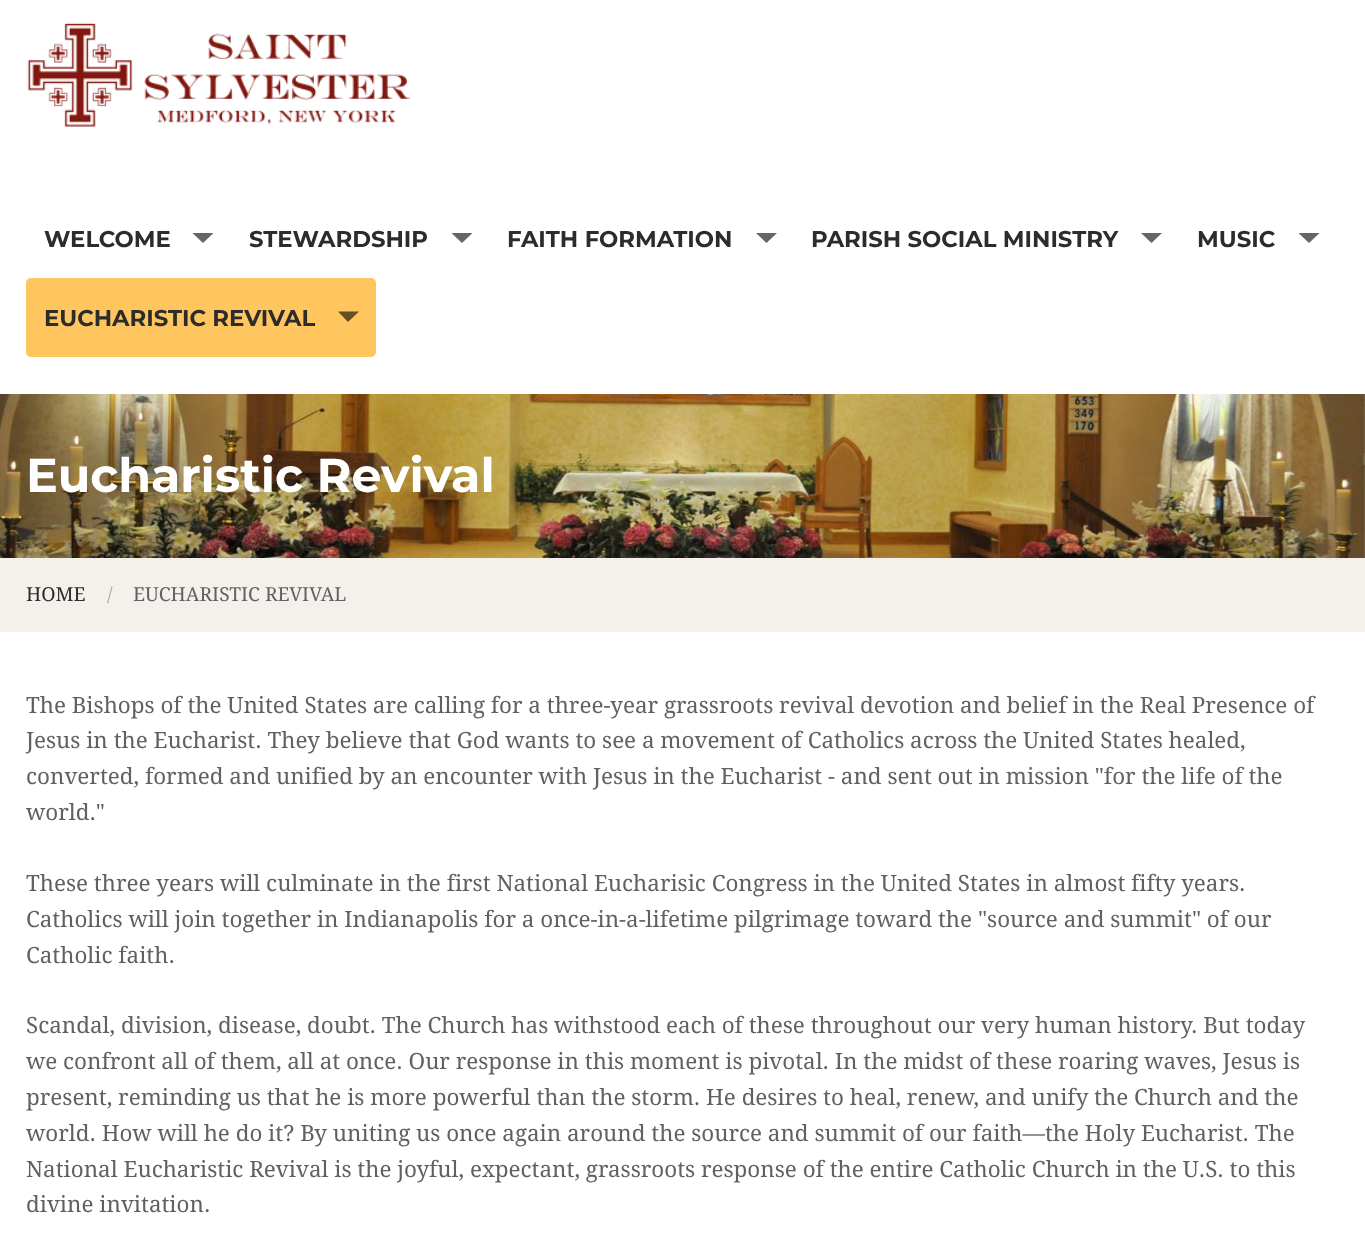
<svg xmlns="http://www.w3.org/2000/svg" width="1365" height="1242">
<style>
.a{font:bold 22.75px Montserrat;fill:#2c2c2a}
.b{font:bold 47.5px Montserrat;fill:#fff}
.c{font:19.25px Droid Serif;fill:#2c2c2a}
.d{font:19.25px Droid Serif;fill:#aaa}
.e{font:19.25px Droid Serif;fill:#63615f}
.f{font:22.4px Droid Serif;fill:#63615f}
</style>
<rect width="100%" height="100%" fill="#fff"/>
<image href="1.png" x="27" y="22" width="384" height="105"/>
<path fill="#666" d="M192.5 233h21l-10.5 10z"/>
<path fill="#666" d="M451.5 233h21l-10.5 10z"/>
<path fill="#666" d="M756 233h21l-10.5 10z"/>
<path fill="#666" d="M1141 233h21l-10.5 10z"/>
<path fill="#666" d="M1298.5 233h21l-10.5 10z"/>
<rect fill="#ffc55f" x="26" y="278" width="350" height="79" rx="5"/>
<path fill="#664f26" d="M338 311.5h21l-11 10.5z"/>
<image href="2.png" x="0" y="394" width="1365" height="164"/>
<path fill="#f4f0eb" d="M0 558h1365v74H0z"/>
<text class="a" x="44" y="247">WELCOME</text>
<text class="a" x="249" y="247">STEWARDSHIP</text>
<text class="a" x="507" y="247">FAITH FORMATION</text>
<text class="a" x="811" y="247">PARISH SOCIAL MINISTRY</text>
<text class="a" x="1197" y="247">MUSIC</text>
<text class="a" x="44" y="326">EUCHARISTIC REVIVAL</text>
<text class="b" x="26" y="492">Eucharistic Revival</text>
<text class="c" x="26" y="601">HOME</text>
<text class="d" x="107" y="601">/</text>
<text class="e" x="133" y="601">EUCHARISTIC REVIVAL</text>
<text class="f" x="26" y="713">The Bishops of the United States are calling for a three-year grassroots revival devotion and belief in the Real Presence of</text>
<text class="f" x="26" y="748">Jesus in the Eucharist. They believe that God wants to see a movement of Catholics across the United States healed,</text>
<text class="f" x="26" y="784">converted, formed and unified by an encounter with Jesus in the Eucharist - and sent out in mission "for the life of the</text>
<text class="f" x="26" y="820">world."</text>
<text class="f" x="26" y="891">These three years will culminate in the first National Eucharisic Congress in the United States in almost fifty years.</text>
<text class="f" x="26" y="927">Catholics will join together in Indianapolis for a once-in-a-lifetime pilgrimage toward the "source and summit" of our</text>
<text class="f" x="26" y="963">Catholic faith.</text>
<text class="f" x="26" y="1033">Scandal, division, disease, doubt. The Church has withstood each of these throughout our very human history. But today</text>
<text class="f" x="26" y="1069">we confront all of them, all at once. Our response in this moment is pivotal. In the midst of these roaring waves, Jesus is</text>
<text class="f" x="26" y="1105">present, reminding us that he is more powerful than the storm. He desires to heal, renew, and unify the Church and the</text>
<text class="f" x="26" y="1141">world. How will he do it? By uniting us once again around the source and summit of our faith—the Holy Eucharist. The</text>
<text class="f" x="26" y="1177">National Eucharistic Revival is the joyful, expectant, grassroots response of the entire Catholic Church in the U.S. to this</text>
<text class="f" x="26" y="1212">divine invitation.</text>
</svg>
